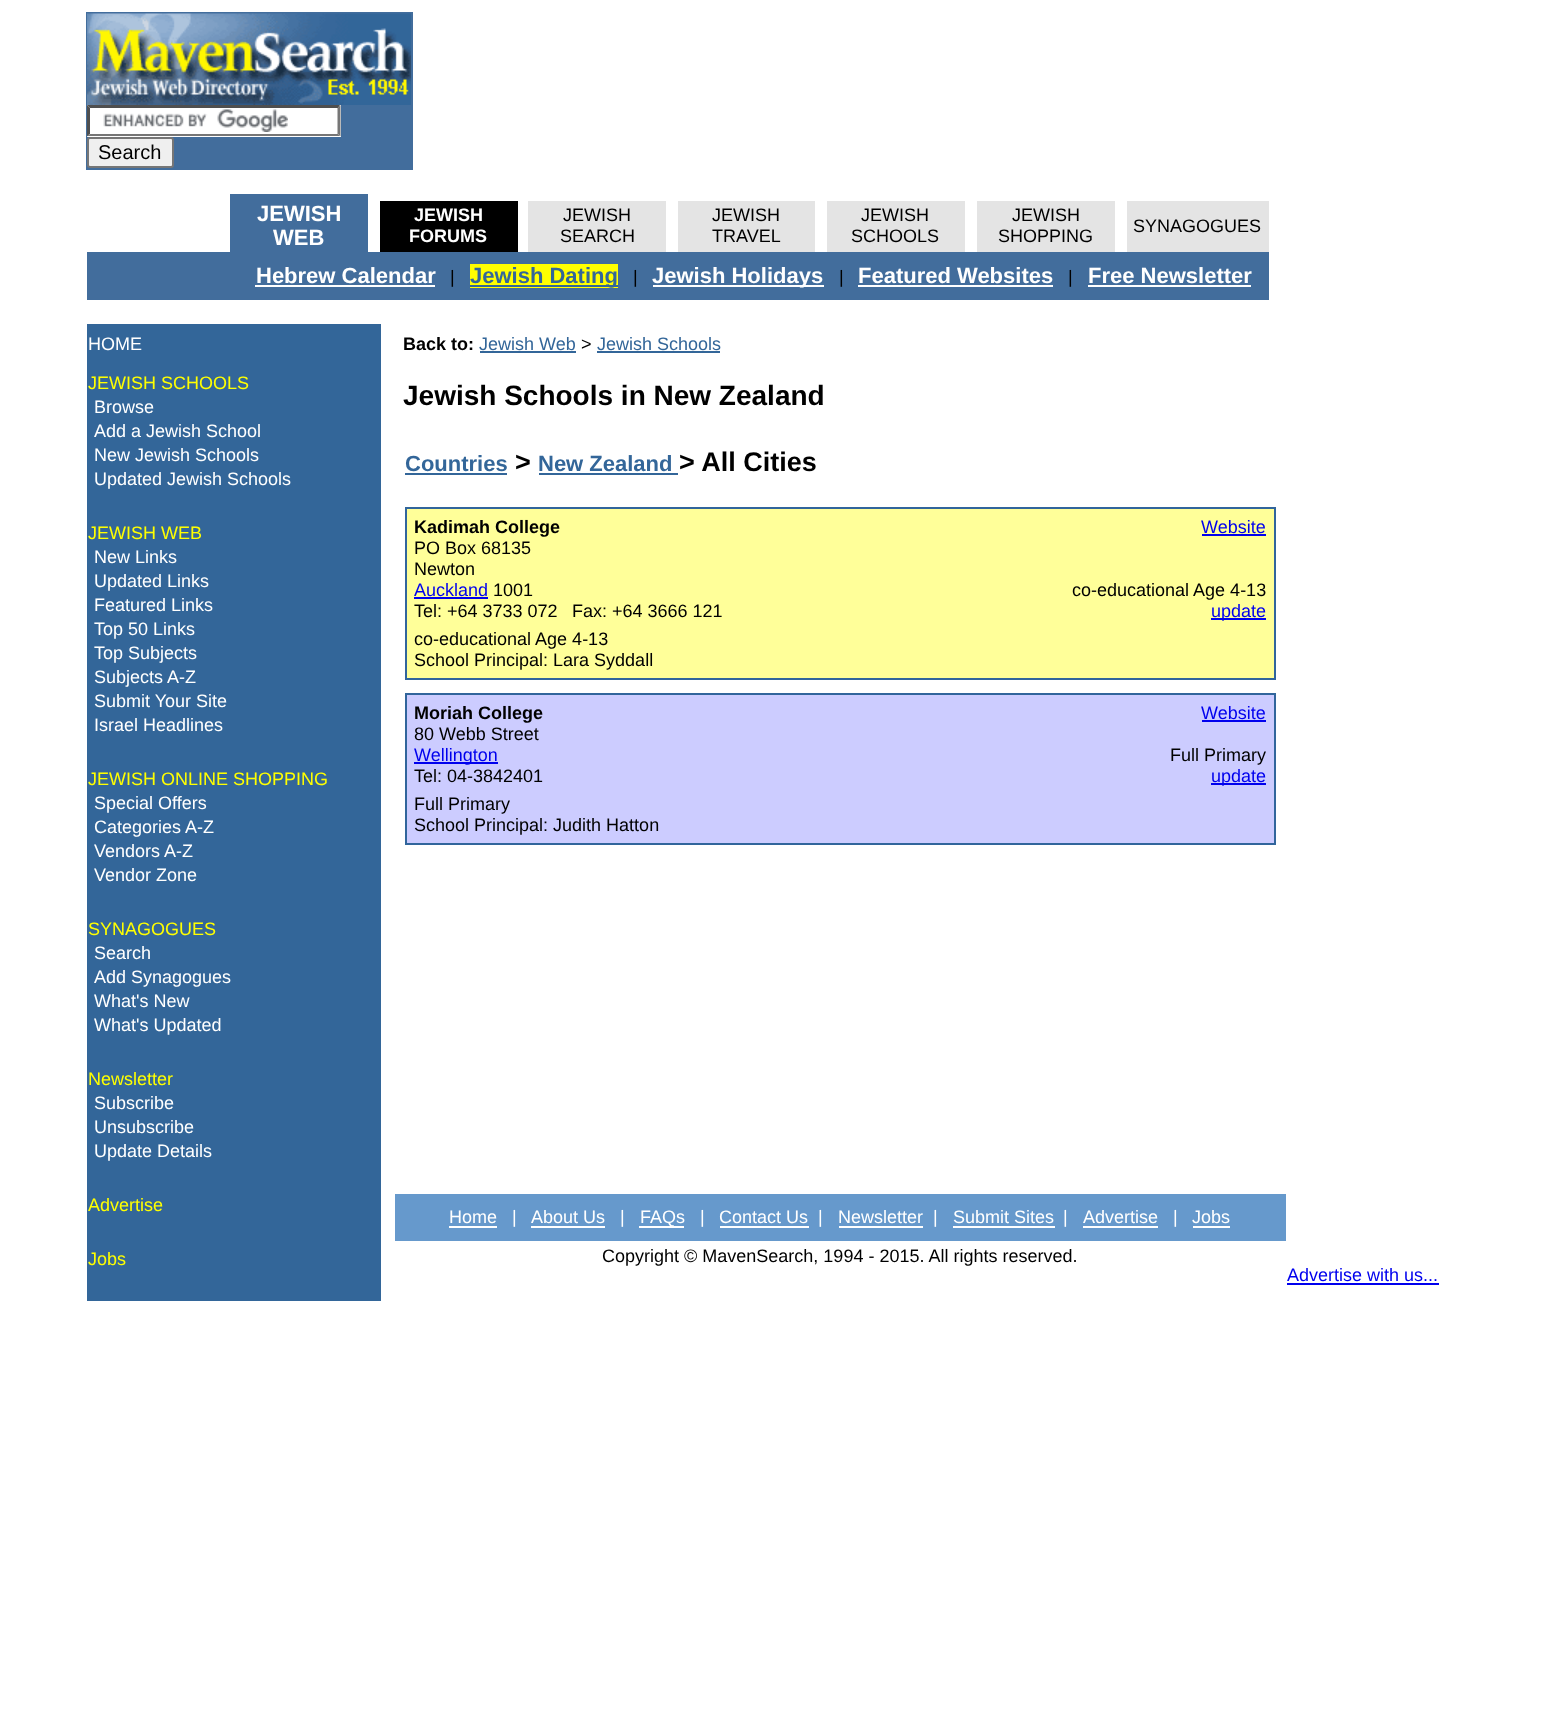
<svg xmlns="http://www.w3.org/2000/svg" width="1561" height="1735">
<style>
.a{font:20px Liberation Sans;fill:#000}
.b{font:bold 22px Liberation Sans;fill:#fff}
.c{font:bold 18px Liberation Sans;fill:#fff}
.d{font:18px Liberation Sans;fill:#000}
.e{font:bold 22px Liberation Sans;fill:#369}
.f{font:18px Liberation Sans;fill:#fff}
.g{font:18px Liberation Sans;fill:#ff0}
.h{font:bold 18px Liberation Sans;fill:#000}
.i{font:18px Liberation Sans;fill:#369}
.j{font:bold 28px Liberation Sans;fill:#000}
.k{font:bold 27px Liberation Sans;fill:#000}
.l{font:18px Liberation Sans;fill:#00e}
</style>
<rect width="100%" height="100%" fill="#fff"/>
<path fill="#426d9c" d="M86 12h327v158H86z"/>
<image href="1.png" x="87" y="13" width="324" height="92"/>
<path fill="#fff" d="M87 105h254v32H87z"/>
<image href="2.png" x="103" y="109" width="185" height="23"/>
<path fill="#4f4f4f" d="M87 105h253l-2 3h-248z"/>
<path fill="#767676" d="M340.5 105v31.5l-3-3v-25.5z"/>
<path fill="#767676" d="M340 136h-253l3-2h248z"/>
<path fill="#4f4f4f" d="M87 136.5v-31.5l3 3v25.5z"/>
<rect fill="#efefef" stroke="#767676" stroke-width="2" x="88" y="138" width="85" height="29" rx="2"/>
<path fill="#426d9c" d="M230 194h138v58H230z"/>
<path fill="#000" d="M380 201h138v51H380z"/>
<path fill="#e4e4e4" d="M528 201h138v51H528z"/>
<path fill="#e4e4e4" d="M678 201h137v51H678z"/>
<path fill="#e4e4e4" d="M827 201h138v51H827z"/>
<path fill="#e4e4e4" d="M977 201h138v51H977z"/>
<path fill="#e4e4e4" d="M1127 201h142v51H1127z"/>
<path fill="#426d9c" d="M87 252h1182v48H87z"/>
<path fill="#fff" d="M255 285h180v2H255z"/>
<path fill="#ff0" d="M470 264h148v24H470z"/>
<path fill="#369" d="M470 285h148v2H470z"/>
<path fill="#fff" d="M653 285h171v2H653z"/>
<path fill="#fff" d="M858 285h195v2H858z"/>
<path fill="#fff" d="M1088 285h163v2H1088z"/>
<path fill="#369" d="M87 324h294v977H87z"/>
<path fill="#369" d="M480 351h96v2H480z"/>
<path fill="#369" d="M597 351h123v2H597z"/>
<path fill="#369" d="M405 473h102v2H405z"/>
<path fill="#369" d="M539 473h139v2H539z"/>
<path fill="#ff9" d="M407 509h867v169H407z"/>
<path fill="#31659c" d="M405 507h870v2H405z"/>
<path fill="#31659c" d="M1274 507h2v173H1274z"/>
<path fill="#31659c" d="M405 678h870v2H405z"/>
<path fill="#31659c" d="M405 507h2v173H405z"/>
<path fill="#00e" d="M1202 534h64v2H1202z"/>
<path fill="#00e" d="M414 597h74v2H414z"/>
<path fill="#00e" d="M1211 618h55v2H1211z"/>
<path fill="#ccf" d="M407 695h867v148H407z"/>
<path fill="#31659c" d="M405 693h870v2H405z"/>
<path fill="#31659c" d="M1274 693h2v152H1274z"/>
<path fill="#31659c" d="M405 843h870v2H405z"/>
<path fill="#31659c" d="M405 693h2v152H405z"/>
<path fill="#00e" d="M1202 720h64v2H1202z"/>
<path fill="#00e" d="M414 762h84v2H414z"/>
<path fill="#00e" d="M1211 783h55v2H1211z"/>
<path fill="#69c" d="M395 1194h891v47H395z"/>
<path fill="#fff" d="M449 1226h48v2H449z"/>
<path fill="#fff" d="M531 1226h74v2H531z"/>
<path fill="#fff" d="M639 1226h45v2H639z"/>
<path fill="#fff" d="M720 1226h89v2H720z"/>
<path fill="#fff" d="M839 1226h84v2H839z"/>
<path fill="#fff" d="M953 1226h102v2H953z"/>
<path fill="#fff" d="M1083 1226h75v2H1083z"/>
<path fill="#fff" d="M1193 1226h37v2H1193z"/>
<path fill="#00e" d="M1287 1283h152v2H1287z"/>
<text class="a" x="98" y="159">Search</text>
<text class="b" x="257" y="221">JEWISH</text>
<text class="b" x="273" y="245">WEB</text>
<text class="c" x="414" y="221">JEWISH</text>
<text class="c" x="409" y="242">FORUMS</text>
<text class="d" x="563" y="221">JEWISH</text>
<text class="d" x="560" y="242">SEARCH</text>
<text class="d" x="712" y="221">JEWISH</text>
<text class="d" x="712" y="242">TRAVEL</text>
<text class="d" x="861" y="221">JEWISH</text>
<text class="d" x="851" y="242">SCHOOLS</text>
<text class="d" x="1012" y="221">JEWISH</text>
<text class="d" x="998" y="242">SHOPPING</text>
<text class="d" x="1133" y="232">SYNAGOGUES</text>
<text class="b" x="256" y="283">Hebrew Calendar</text>
<text class="d" x="450" y="283">|</text>
<text class="e" x="470" y="283">Jewish Dating</text>
<text class="d" x="633" y="283">|</text>
<text class="b" x="652" y="283">Jewish Holidays</text>
<text class="d" x="839" y="283">|</text>
<text class="b" x="858" y="283">Featured Websites</text>
<text class="d" x="1068" y="283">|</text>
<text class="b" x="1088" y="283">Free Newsletter</text>
<text class="f" x="88" y="350">HOME</text>
<text class="g" x="88" y="389">JEWISH SCHOOLS</text>
<text class="f" x="94" y="413">Browse</text>
<text class="f" x="94" y="437">Add a Jewish School</text>
<text class="f" x="94" y="461">New Jewish Schools</text>
<text class="f" x="94" y="485">Updated Jewish Schools</text>
<text class="g" x="88" y="539">JEWISH WEB</text>
<text class="f" x="94" y="563">New Links</text>
<text class="f" x="94" y="587">Updated Links</text>
<text class="f" x="94" y="611">Featured Links</text>
<text class="f" x="94" y="635">Top 50 Links</text>
<text class="f" x="94" y="659">Top Subjects</text>
<text class="f" x="94" y="683">Subjects A-Z</text>
<text class="f" x="94" y="707">Submit Your Site</text>
<text class="f" x="94" y="731">Israel Headlines</text>
<text class="g" x="88" y="785">JEWISH ONLINE SHOPPING</text>
<text class="f" x="94" y="809">Special Offers</text>
<text class="f" x="94" y="833">Categories A-Z</text>
<text class="f" x="94" y="857">Vendors A-Z</text>
<text class="f" x="94" y="881">Vendor Zone</text>
<text class="g" x="88" y="935">SYNAGOGUES</text>
<text class="f" x="94" y="959">Search</text>
<text class="f" x="94" y="983">Add Synagogues</text>
<text class="f" x="94" y="1007">What's New</text>
<text class="f" x="94" y="1031">What's Updated</text>
<text class="g" x="88" y="1085">Newsletter</text>
<text class="f" x="94" y="1109">Subscribe</text>
<text class="f" x="94" y="1133">Unsubscribe</text>
<text class="f" x="94" y="1157">Update Details</text>
<text class="g" x="88" y="1211">Advertise</text>
<text class="g" x="88" y="1265">Jobs</text>
<text class="h" x="403" y="350">Back to:</text>
<text class="i" x="479" y="350">Jewish Web</text>
<text class="d" x="581" y="350">&gt;</text>
<text class="i" x="597" y="350">Jewish Schools</text>
<text class="j" x="403" y="405">Jewish Schools in New Zealand</text>
<text class="e" x="405" y="471">Countries</text>
<text class="k" x="515" y="471">&gt;</text>
<text class="e" x="538" y="471">New Zealand</text>
<text class="k" x="679" y="471">&gt; All Cities</text>
<text class="h" x="414" y="533">Kadimah College</text>
<text class="l" x="1201" y="533">Website</text>
<text class="d" x="414" y="554">PO Box 68135</text>
<text class="d" x="414" y="575">Newton</text>
<text class="l" x="414" y="596">Auckland</text>
<text class="d" x="493" y="596">1001</text>
<text class="d" x="1072" y="596">co-educational Age 4-13</text>
<text class="d" x="414" y="617">Tel: +64 3733 072</text>
<text class="d" x="572" y="617">Fax: +64 3666 121</text>
<text class="l" x="1211" y="617">update</text>
<text class="d" x="414" y="645">co-educational Age 4-13</text>
<text class="d" x="414" y="666">School Principal: Lara Syddall</text>
<text class="h" x="414" y="719">Moriah College</text>
<text class="l" x="1201" y="719">Website</text>
<text class="d" x="414" y="740">80 Webb Street</text>
<text class="l" x="414" y="761">Wellington</text>
<text class="d" x="1170" y="761">Full Primary</text>
<text class="d" x="414" y="782">Tel: 04-3842401</text>
<text class="l" x="1211" y="782">update</text>
<text class="d" x="414" y="810">Full Primary</text>
<text class="d" x="414" y="831">School Principal: Judith Hatton</text>
<text class="f" x="449" y="1223">Home</text>
<text class="f" x="512" y="1223">|</text>
<text class="f" x="531" y="1223">About Us</text>
<text class="f" x="620" y="1223">|</text>
<text class="f" x="640" y="1223">FAQs</text>
<text class="f" x="700" y="1223">|</text>
<text class="f" x="719" y="1223">Contact Us</text>
<text class="f" x="818" y="1223">|</text>
<text class="f" x="838" y="1223">Newsletter</text>
<text class="f" x="933" y="1223">|</text>
<text class="f" x="953" y="1223">Submit Sites</text>
<text class="f" x="1063" y="1223">|</text>
<text class="f" x="1083" y="1223">Advertise</text>
<text class="f" x="1173" y="1223">|</text>
<text class="f" x="1192" y="1223">Jobs</text>
<text class="d" x="602" y="1262">Copyright © MavenSearch, 1994 - 2015. All rights reserved.</text>
<text class="l" x="1287" y="1281">Advertise with us...</text>
</svg>
